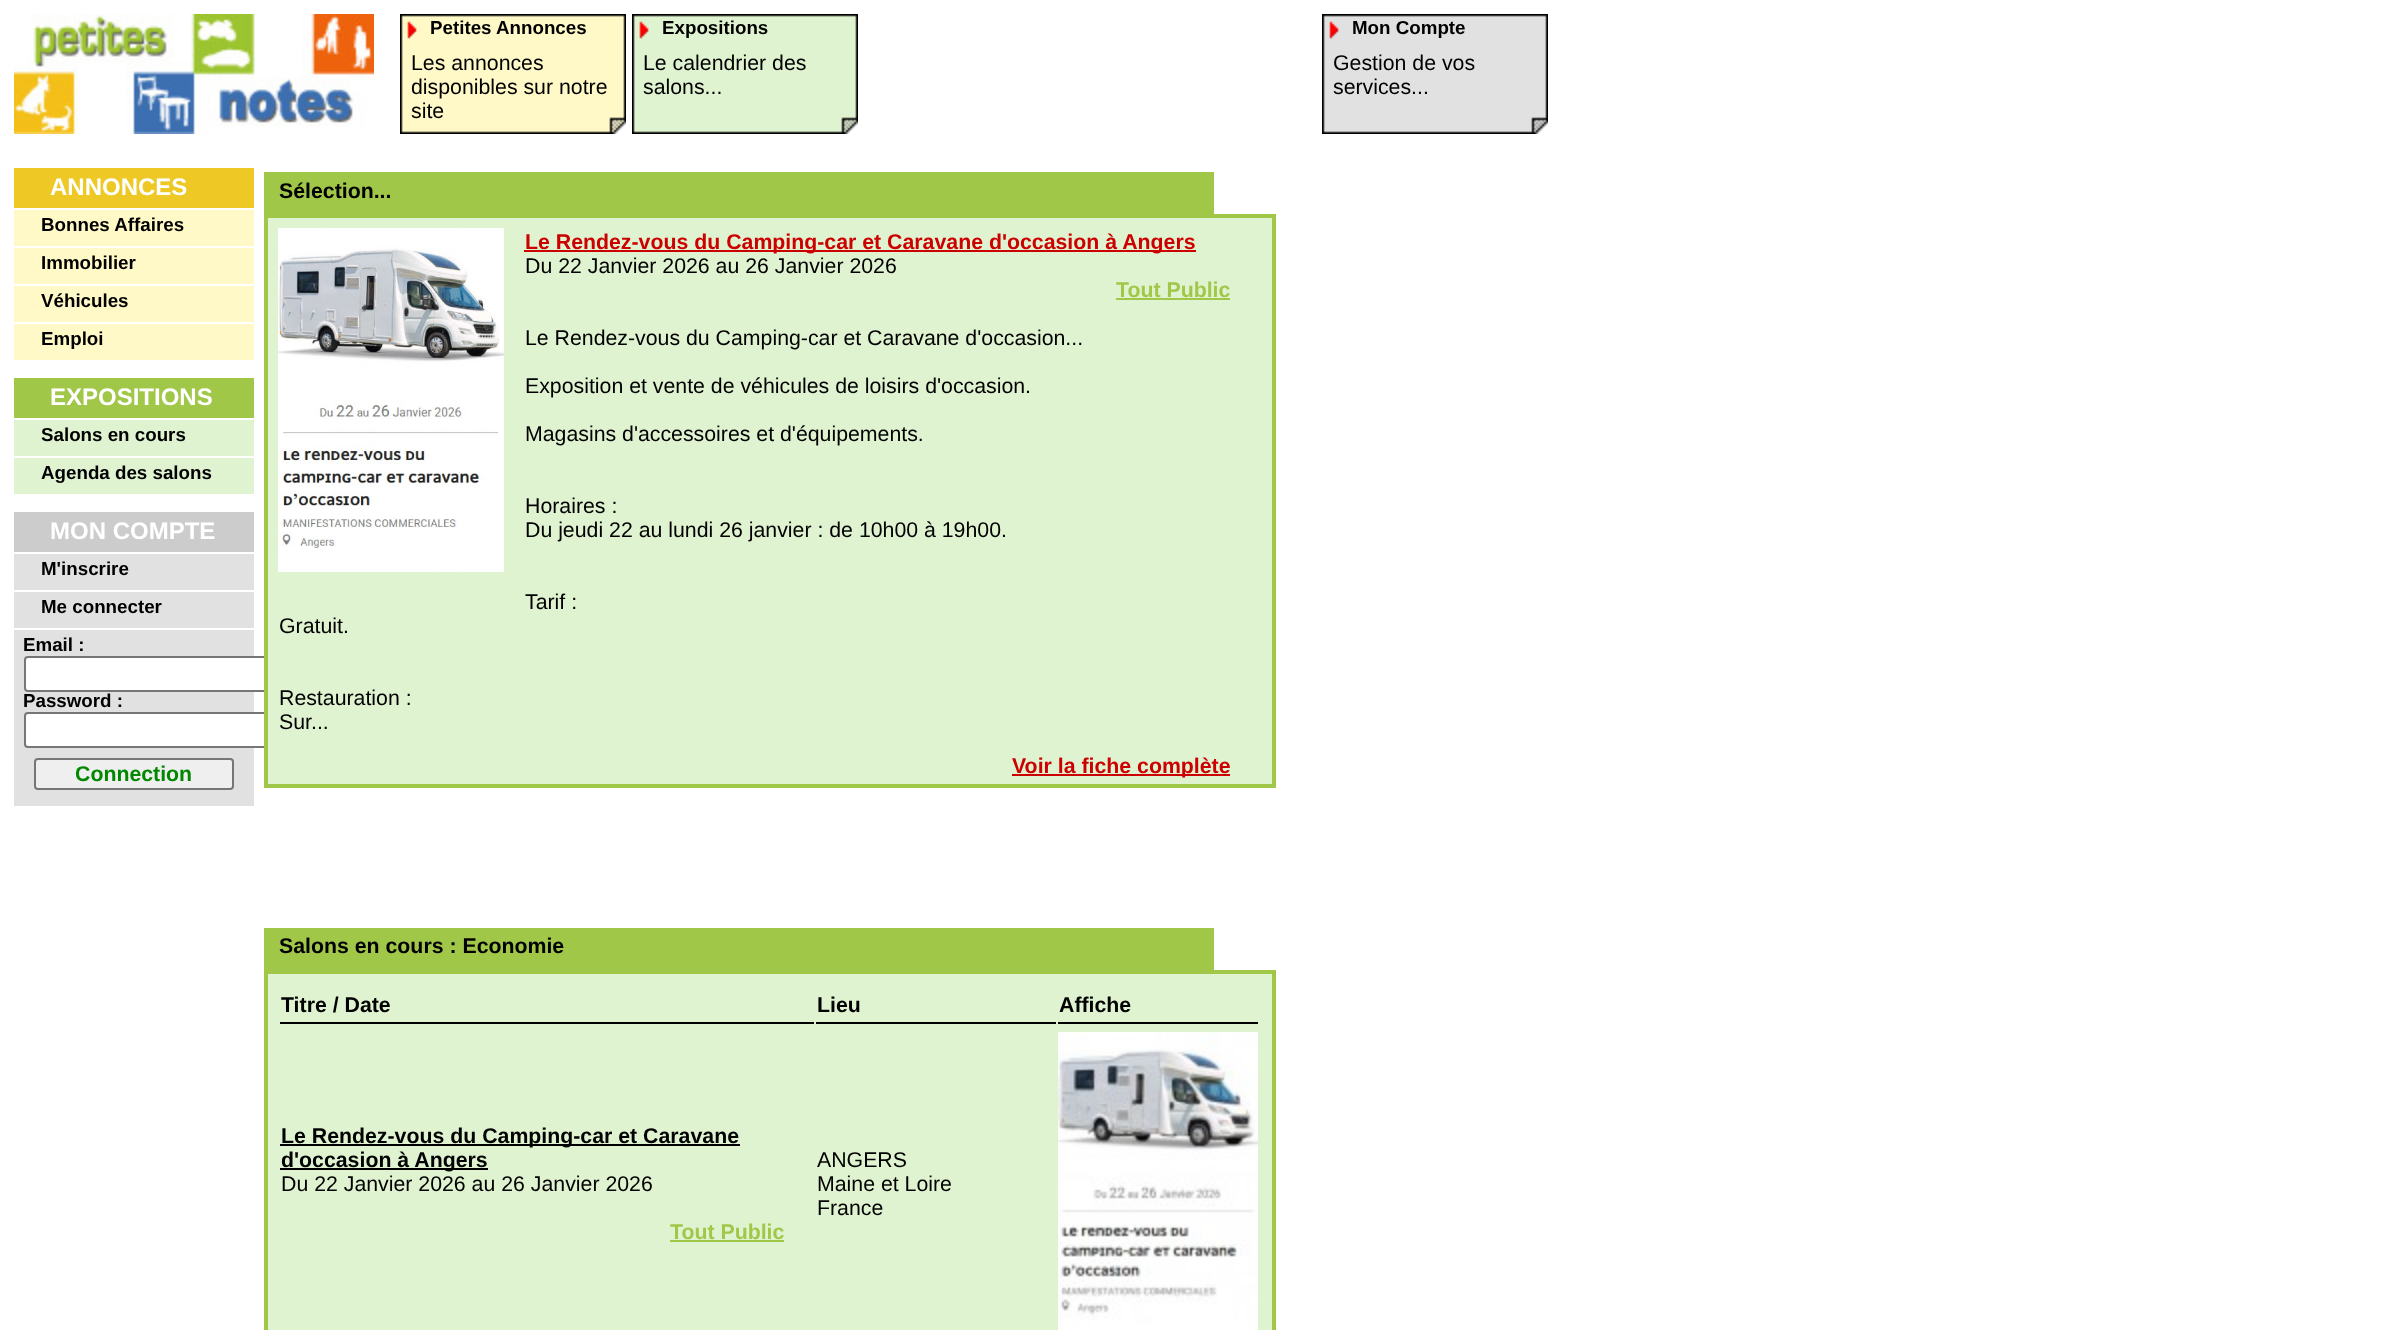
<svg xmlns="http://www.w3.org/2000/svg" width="2381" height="1330">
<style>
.a{font:bold 18.75px Liberation Sans;fill:#000}
.b{font:21.3px Liberation Sans;fill:#000}
.c{font:bold 24px Liberation Sans;fill:#fff}
.d{font:bold 21.3px Liberation Sans;fill:#080}
.e{font:bold 21.3px Liberation Sans;fill:#000}
.f{font:bold 21.3px Liberation Sans;fill:#c00}
.g{font:bold 21.3px Liberation Sans;fill:#a1c749}
</style>
<rect width="100%" height="100%" fill="#fff"/>
<image href="1.png" x="14" y="14" width="360" height="120"/>
<path fill="#fff9c7" d="M401 15h224v118H401z"/>
<image href="2.png" x="400" y="14" width="226" height="120"/>
<path fill="#e0f3d0" d="M633 15h224v118H633z"/>
<image href="3.png" x="632" y="14" width="226" height="120"/>
<path fill="#e1e1e1" d="M1323 15h224v118H1323z"/>
<image href="4.png" x="1322" y="14" width="226" height="120"/>
<path fill="#eec926" d="M14 168h240v40H14z"/>
<path fill="#fff9c7" d="M14 210h240v36H14z"/>
<path fill="#fff9c7" d="M14 248h240v36H14z"/>
<path fill="#fff9c7" d="M14 286h240v36H14z"/>
<path fill="#fff9c7" d="M14 324h240v36H14z"/>
<path fill="#a1c749" d="M14 378h240v40H14z"/>
<path fill="#e0f3d0" d="M14 420h240v36H14z"/>
<path fill="#e0f3d0" d="M14 458h240v36H14z"/>
<path fill="#ccc" d="M14 512h240v40H14z"/>
<path fill="#e1e1e1" d="M14 554h240v36H14z"/>
<path fill="#e1e1e1" d="M14 592h240v36H14z"/>
<path fill="#e1e1e1" d="M14 630h240v176H14z"/>
<rect fill="#fff" stroke="#767676" stroke-width="2" x="25" y="657" width="252" height="34" rx="3"/>
<rect fill="#fff" stroke="#767676" stroke-width="2" x="25" y="713" width="252" height="34" rx="3"/>
<rect fill="#efefef" stroke="#767676" stroke-width="2" x="35" y="759" width="198" height="30" rx="3"/>
<path fill="#fff" d="M264 656h14v92H264z"/>
<path fill="#a1c749" d="M264 172h950v42H264z"/>
<path fill="#e0f3d0" stroke="#a1c749" stroke-width="4" d="M266 216h1008v570H266z"/>
<image href="5.png" x="278" y="228" width="226" height="344"/>
<path fill="#c00" d="M524 250h672v2H524z"/>
<path fill="#a1c749" d="M1116 298h114v2H1116z"/>
<path fill="#c00" d="M1012 774h218v2H1012z"/>
<path fill="#a1c749" d="M264 928h950v42H264z"/>
<path fill="#e0f3d0" stroke="#a1c749" stroke-width="4" d="M266 972h1008v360H266z"/>
<path fill="#000" d="M280 1022h534v2H280z"/>
<path fill="#000" d="M816 1022h240v2H816z"/>
<path fill="#000" d="M1058 1022h200v2H1058z"/>
<path fill="#000" d="M280 1144h460v2H280z"/>
<path fill="#000" d="M280 1168h208v2H280z"/>
<path fill="#a1c749" d="M670 1240h114v2H670z"/>
<image href="6.png" x="1058" y="1032" width="200" height="298"/>
<text class="a" x="430" y="34">Petites Annonces</text>
<text class="b" x="411" y="70">Les annonces</text>
<text class="b" x="411" y="94">disponibles sur notre</text>
<text class="b" x="411" y="118">site</text>
<text class="a" x="662" y="34">Expositions</text>
<text class="b" x="643" y="70">Le calendrier des</text>
<text class="b" x="643" y="94">salons...</text>
<text class="a" x="1352" y="34">Mon Compte</text>
<text class="b" x="1333" y="70">Gestion de vos</text>
<text class="b" x="1333" y="94">services...</text>
<text class="c" x="50" y="195">ANNONCES</text>
<text class="a" x="41" y="231">Bonnes Affaires</text>
<text class="a" x="41" y="269">Immobilier</text>
<text class="a" x="41" y="307">Véhicules</text>
<text class="a" x="41" y="345">Emploi</text>
<text class="c" x="50" y="405">EXPOSITIONS</text>
<text class="a" x="41" y="441">Salons en cours</text>
<text class="a" x="41" y="479">Agenda des salons</text>
<text class="c" x="50" y="539">MON COMPTE</text>
<text class="a" x="41" y="575">M'inscrire</text>
<text class="a" x="41" y="613">Me connecter</text>
<text class="a" x="23" y="651">Email :</text>
<text class="a" x="23" y="707">Password :</text>
<text class="d" x="75" y="781">Connection</text>
<text class="e" x="279" y="198">Sélection...</text>
<text class="f" x="525" y="249">Le Rendez-vous du Camping-car et Caravane d'occasion à Angers</text>
<text class="b" x="525" y="273">Du 22 Janvier 2026 au 26 Janvier 2026</text>
<text class="g" x="1116" y="297">Tout Public</text>
<text class="b" x="525" y="345">Le Rendez-vous du Camping-car et Caravane d'occasion...</text>
<text class="b" x="525" y="393">Exposition et vente de véhicules de loisirs d'occasion.</text>
<text class="b" x="525" y="441">Magasins d'accessoires et d'équipements.</text>
<text class="b" x="525" y="513">Horaires :</text>
<text class="b" x="525" y="537">Du jeudi 22 au lundi 26 janvier : de 10h00 à 19h00.</text>
<text class="b" x="525" y="609">Tarif :</text>
<text class="b" x="279" y="633">Gratuit.</text>
<text class="b" x="279" y="705">Restauration :</text>
<text class="b" x="279" y="729">Sur...</text>
<text class="f" x="1012" y="773">Voir la fiche complète</text>
<text class="e" x="279" y="953">Salons en cours : Economie</text>
<text class="e" x="281" y="1012">Titre / Date</text>
<text class="e" x="817" y="1012">Lieu</text>
<text class="e" x="1059" y="1012">Affiche</text>
<text class="e" x="281" y="1143">Le Rendez-vous du Camping-car et Caravane</text>
<text class="e" x="281" y="1167">d'occasion à Angers</text>
<text class="b" x="281" y="1191">Du 22 Janvier 2026 au 26 Janvier 2026</text>
<text class="g" x="670" y="1239">Tout Public</text>
<text class="b" x="817" y="1167">ANGERS</text>
<text class="b" x="817" y="1191">Maine et Loire</text>
<text class="b" x="817" y="1215">France</text>
</svg>
